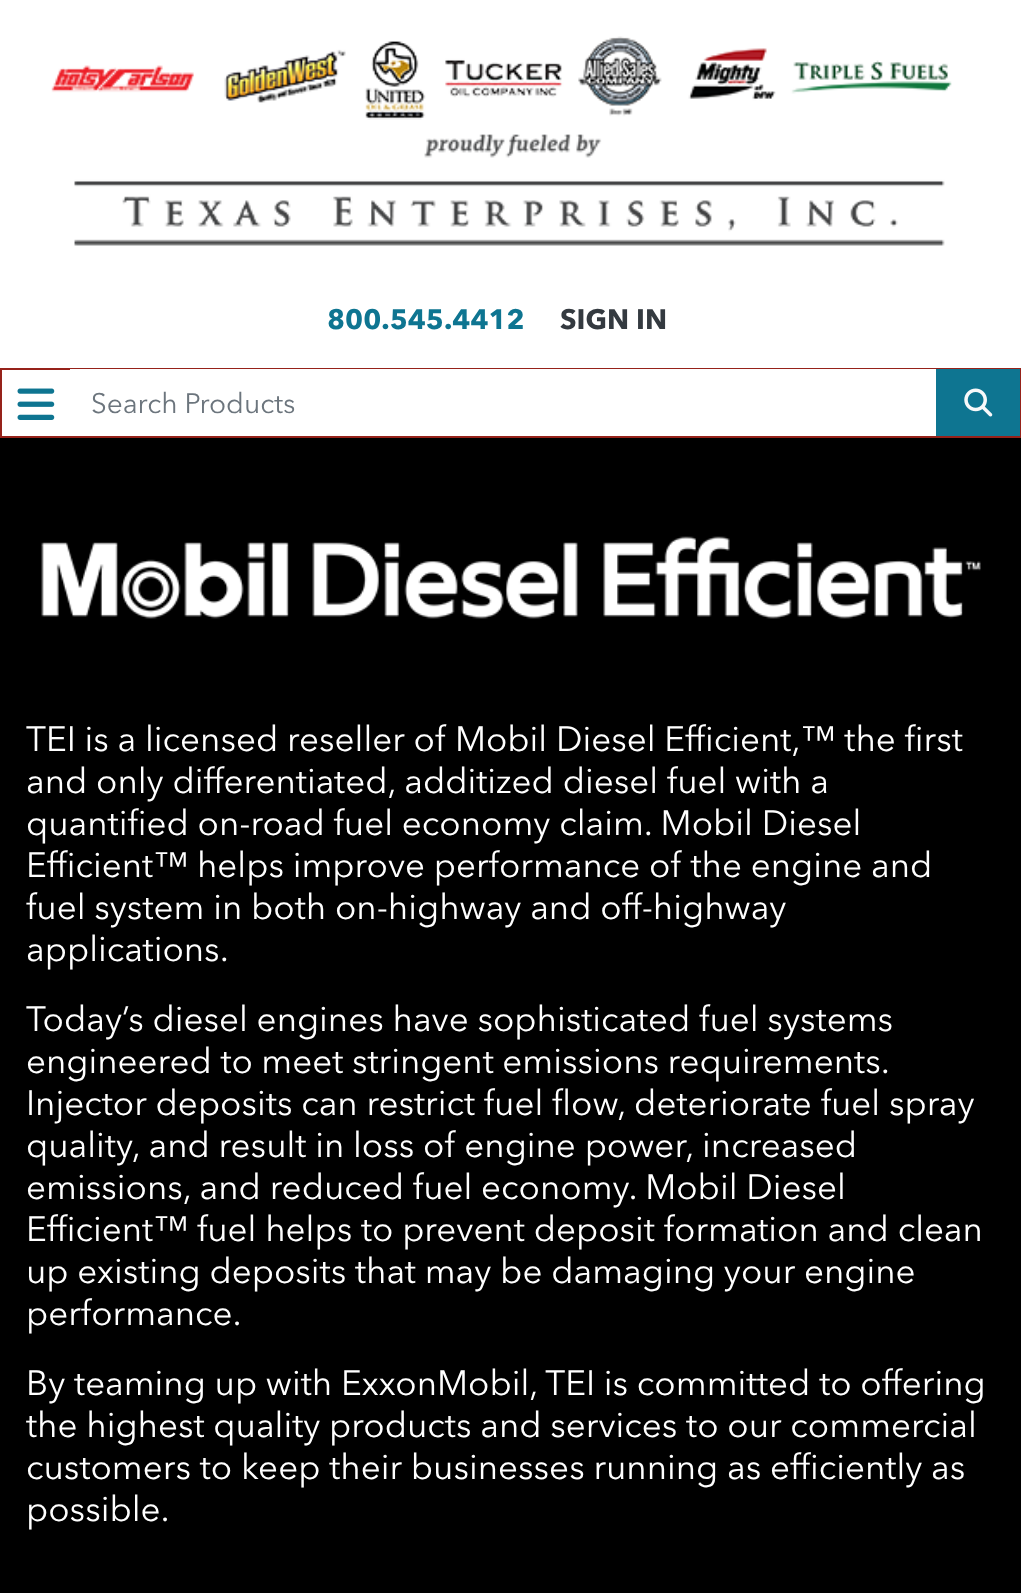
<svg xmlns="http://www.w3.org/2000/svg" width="1021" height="1593">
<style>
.a{font:bold 28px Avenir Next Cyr;fill:#0e7591}
.b{font:bold 28px Avenir Next Cyr;fill:#343a40}
.c{font:28px Avenir Next Cyr;fill:#6c757d}
.d{font:35px Avenir Next Cyr;fill:#fff}
</style>
<rect width="100%" height="100%" fill="#fff"/>
<image href="1.png" x="51" y="36" width="901" height="210"/>
<path fill="none" stroke="#96221a" stroke-width="2" d="M1 369h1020v68H1z"/>
<image href="2.png" x="17" y="388" width="38" height="32"/>
<path fill="#fff" d="M70 369h866v1H70z"/>
<path fill="#0e7591" d="M936 369h84v67H936z"/>
<image href="3.png" x="964" y="388" width="29" height="29"/>
<path fill="#000" d="M0 438h1021v1155H0z"/>
<image href="4.png" x="41" y="536" width="940" height="83"/>
<text class="a" x="327" y="329">800.545.4412</text>
<text class="b" x="560" y="329">SIGN IN</text>
<text class="c" x="91" y="413">Search Products</text>
<text class="d" x="26" y="751">TEI is a licensed reseller of Mobil Diesel Efficient,™ the first</text>
<text class="d" x="26" y="793">and only differentiated, additized diesel fuel with a</text>
<text class="d" x="26" y="835">quantified on-road fuel economy claim. Mobil Diesel</text>
<text class="d" x="26" y="877">Efficient™ helps improve performance of the engine and</text>
<text class="d" x="26" y="919">fuel system in both on-highway and off-highway</text>
<text class="d" x="26" y="961">applications.</text>
<text class="d" x="26" y="1031">Today’s diesel engines have sophisticated fuel systems</text>
<text class="d" x="26" y="1073" word-spacing="-0.25">engineered to meet stringent emissions requirements.</text>
<text class="d" x="26" y="1115">Injector deposits can restrict fuel flow, deteriorate fuel spray</text>
<text class="d" x="26" y="1157">quality, and result in loss of engine power, increased</text>
<text class="d" x="26" y="1199">emissions, and reduced fuel economy. Mobil Diesel</text>
<text class="d" x="26" y="1241">Efficient™ fuel helps to prevent deposit formation and clean</text>
<text class="d" x="26" y="1283">up existing deposits that may be damaging your engine</text>
<text class="d" x="26" y="1325">performance.</text>
<text class="d" x="26" y="1395">By teaming up with ExxonMobil, TEI is committed to offering</text>
<text class="d" x="26" y="1437">the highest quality products and services to our commercial</text>
<text class="d" x="26" y="1479">customers to keep their businesses running as efficiently as</text>
<text class="d" x="26" y="1521">possible.</text>
</svg>
